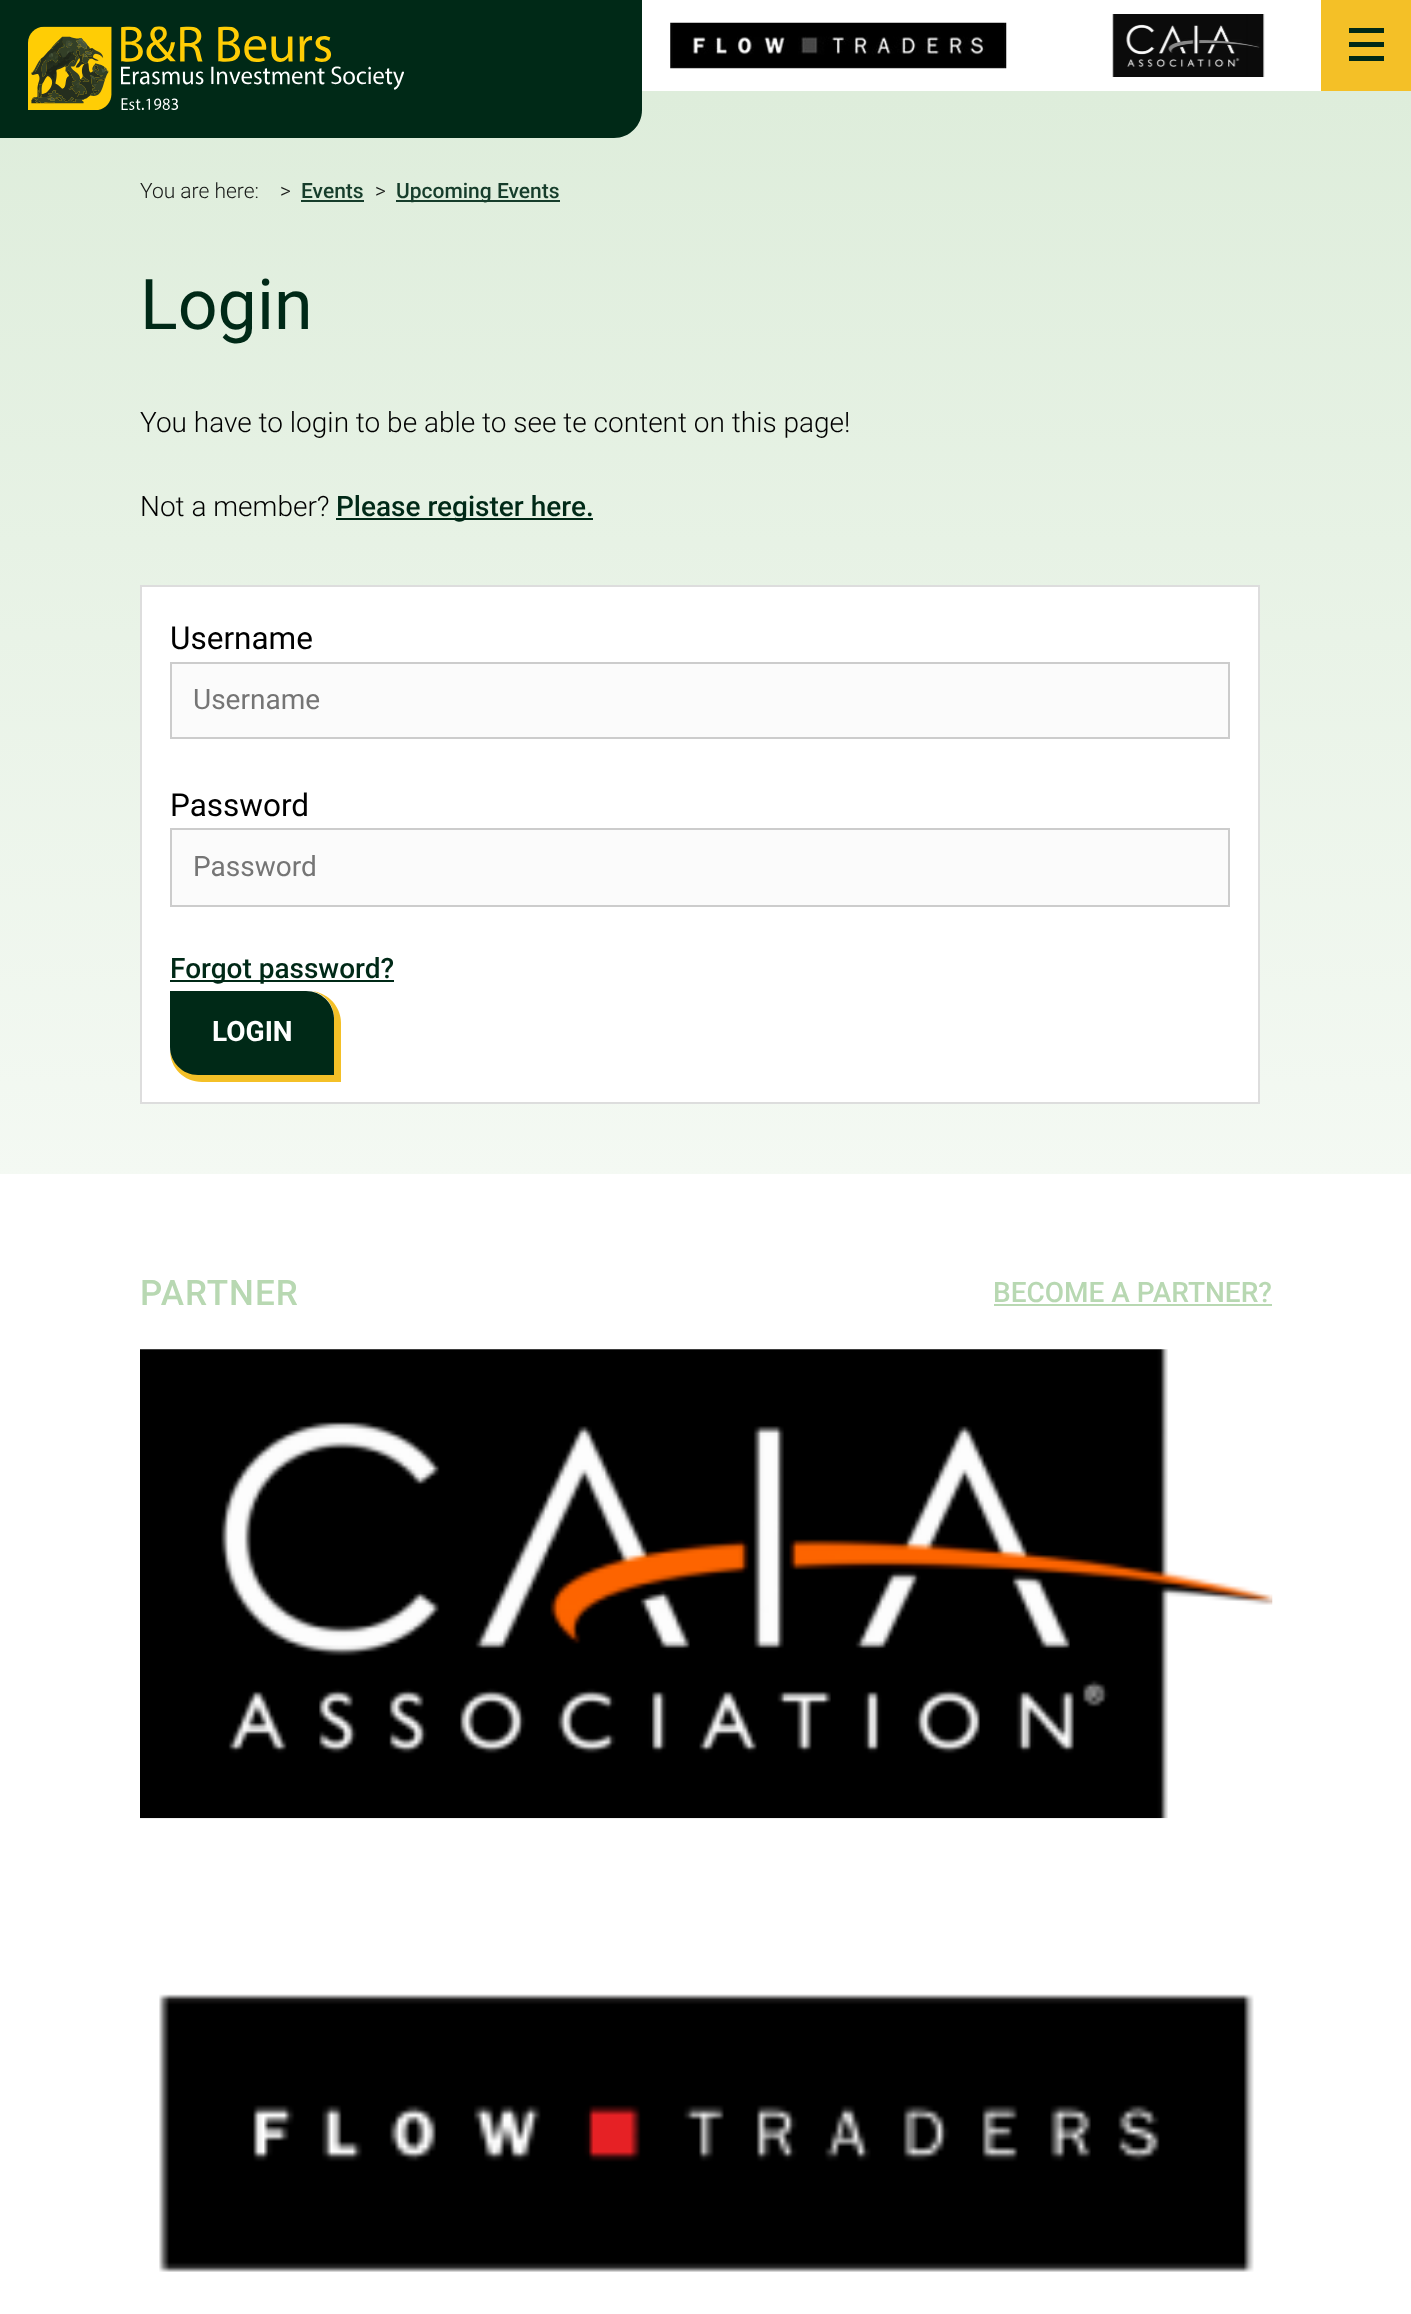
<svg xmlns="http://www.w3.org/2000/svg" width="1411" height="2314">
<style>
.a{font:300 21px Roboto;fill:#161816}
.b{font:500 21px Roboto;fill:#163d2b}
.c{font:70px Roboto;fill:#002917}
.d{font:300 28px Roboto;fill:#000}
.e{font:500 28px Roboto;fill:#002917}
.f{font:31.5px Roboto;fill:#000}
.g{font:28px Roboto;fill:#757575}
.h{font:bold 28px Roboto;fill:#fff}
.i{font:500 35px Roboto;letter-spacing:1px;fill:#b8d8b2}
.j{font:500 28px Roboto;fill:#b8d8b2}
</style>
<defs>
<linearGradient id="g1" gradientUnits="userSpaceOnUse" x1="706" y1="0" x2="706" y2="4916"><stop offset="0" stop-color="#dcecd9"/><stop offset="0.35" stop-color="#fff"/></linearGradient>
</defs>
<rect width="100%" height="100%" fill="#fff"/>
<path fill="url(#g1)" d="M0 91h1411v1083H0z"/>
<path fill="#002917" d="M0-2h642v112c0 15.5-12.5 28-28 28h-614z"/>
<image href="1.png" x="28" y="26" width="376" height="84"/>
<image href="2.png" x="670" y="22" width="337" height="47"/>
<image href="3.png" x="1112" y="14" width="153" height="63"/>
<path fill="#f4c027" d="M1321 0h90v91H1321z"/>
<path fill="#002917" d="M1349 42h35v5H1349z"/>
<path fill="#002917" d="M1349 28h35v5H1349z"/>
<path fill="#002917" d="M1349 56h35v5H1349z"/>
<path fill="#163d2b" d="M301 200h63v2H301z"/>
<path fill="#163d2b" d="M396 200h164v2H396z"/>
<path fill="#002917" d="M336 518h257v2H336z"/>
<path fill="#fff" stroke="#ddd" stroke-width="2" d="M141 586h1118v517H141z"/>
<path fill="#fbfbfb" stroke="#ccc" stroke-width="2" d="M171 663h1058v75H171z"/>
<path fill="#fbfbfb" stroke="#ccc" stroke-width="2" d="M171 829h1058v77H171z"/>
<path fill="#002917" d="M170 980h224v2H170z"/>
<path fill="#f4c027" d="M170 1050c0 18 14 32 32 32h139v-59c0-17-13-30-29-32c13 3 22 14 22 27v56h-136c-14 0-26-10-28-24z"/>
<path fill="#002917" d="M170 991h136c15.5 0 28 12.5 28 28v56h-136c-15.5 0-28-12.5-28-28z"/>
<path fill="#b8d8b2" d="M994 1304h278v2H994z"/>
<image href="4.png" x="140" y="1349" width="1133" height="470"/>
<image href="5.png" x="140" y="1818" width="1114" height="454"/>
<text class="a" x="140" y="198">You are here:</text>
<text class="a" x="280" y="198">&gt;</text>
<text class="b" x="301" y="198">Events</text>
<text class="a" x="375" y="198">&gt;</text>
<text class="b" x="396" y="198">Upcoming Events</text>
<text class="c" x="140" y="329">Login</text>
<text class="d" x="140" y="432">You have to login to be able to see te content on this page!</text>
<text class="d" x="140" y="516">Not a member?</text>
<text class="e" x="336" y="516">Please register here.</text>
<text class="f" x="170" y="649">Username</text>
<text class="g" x="193" y="709">Username</text>
<text class="f" x="170" y="816">Password</text>
<text class="g" x="193" y="876">Password</text>
<text class="e" x="170" y="978">Forgot password?</text>
<text class="h" x="212" y="1041">LOGIN</text>
<text class="i" x="140" y="1305">PARTNER</text>
<text class="j" x="993" y="1302">BECOME A PARTNER?</text>
</svg>
